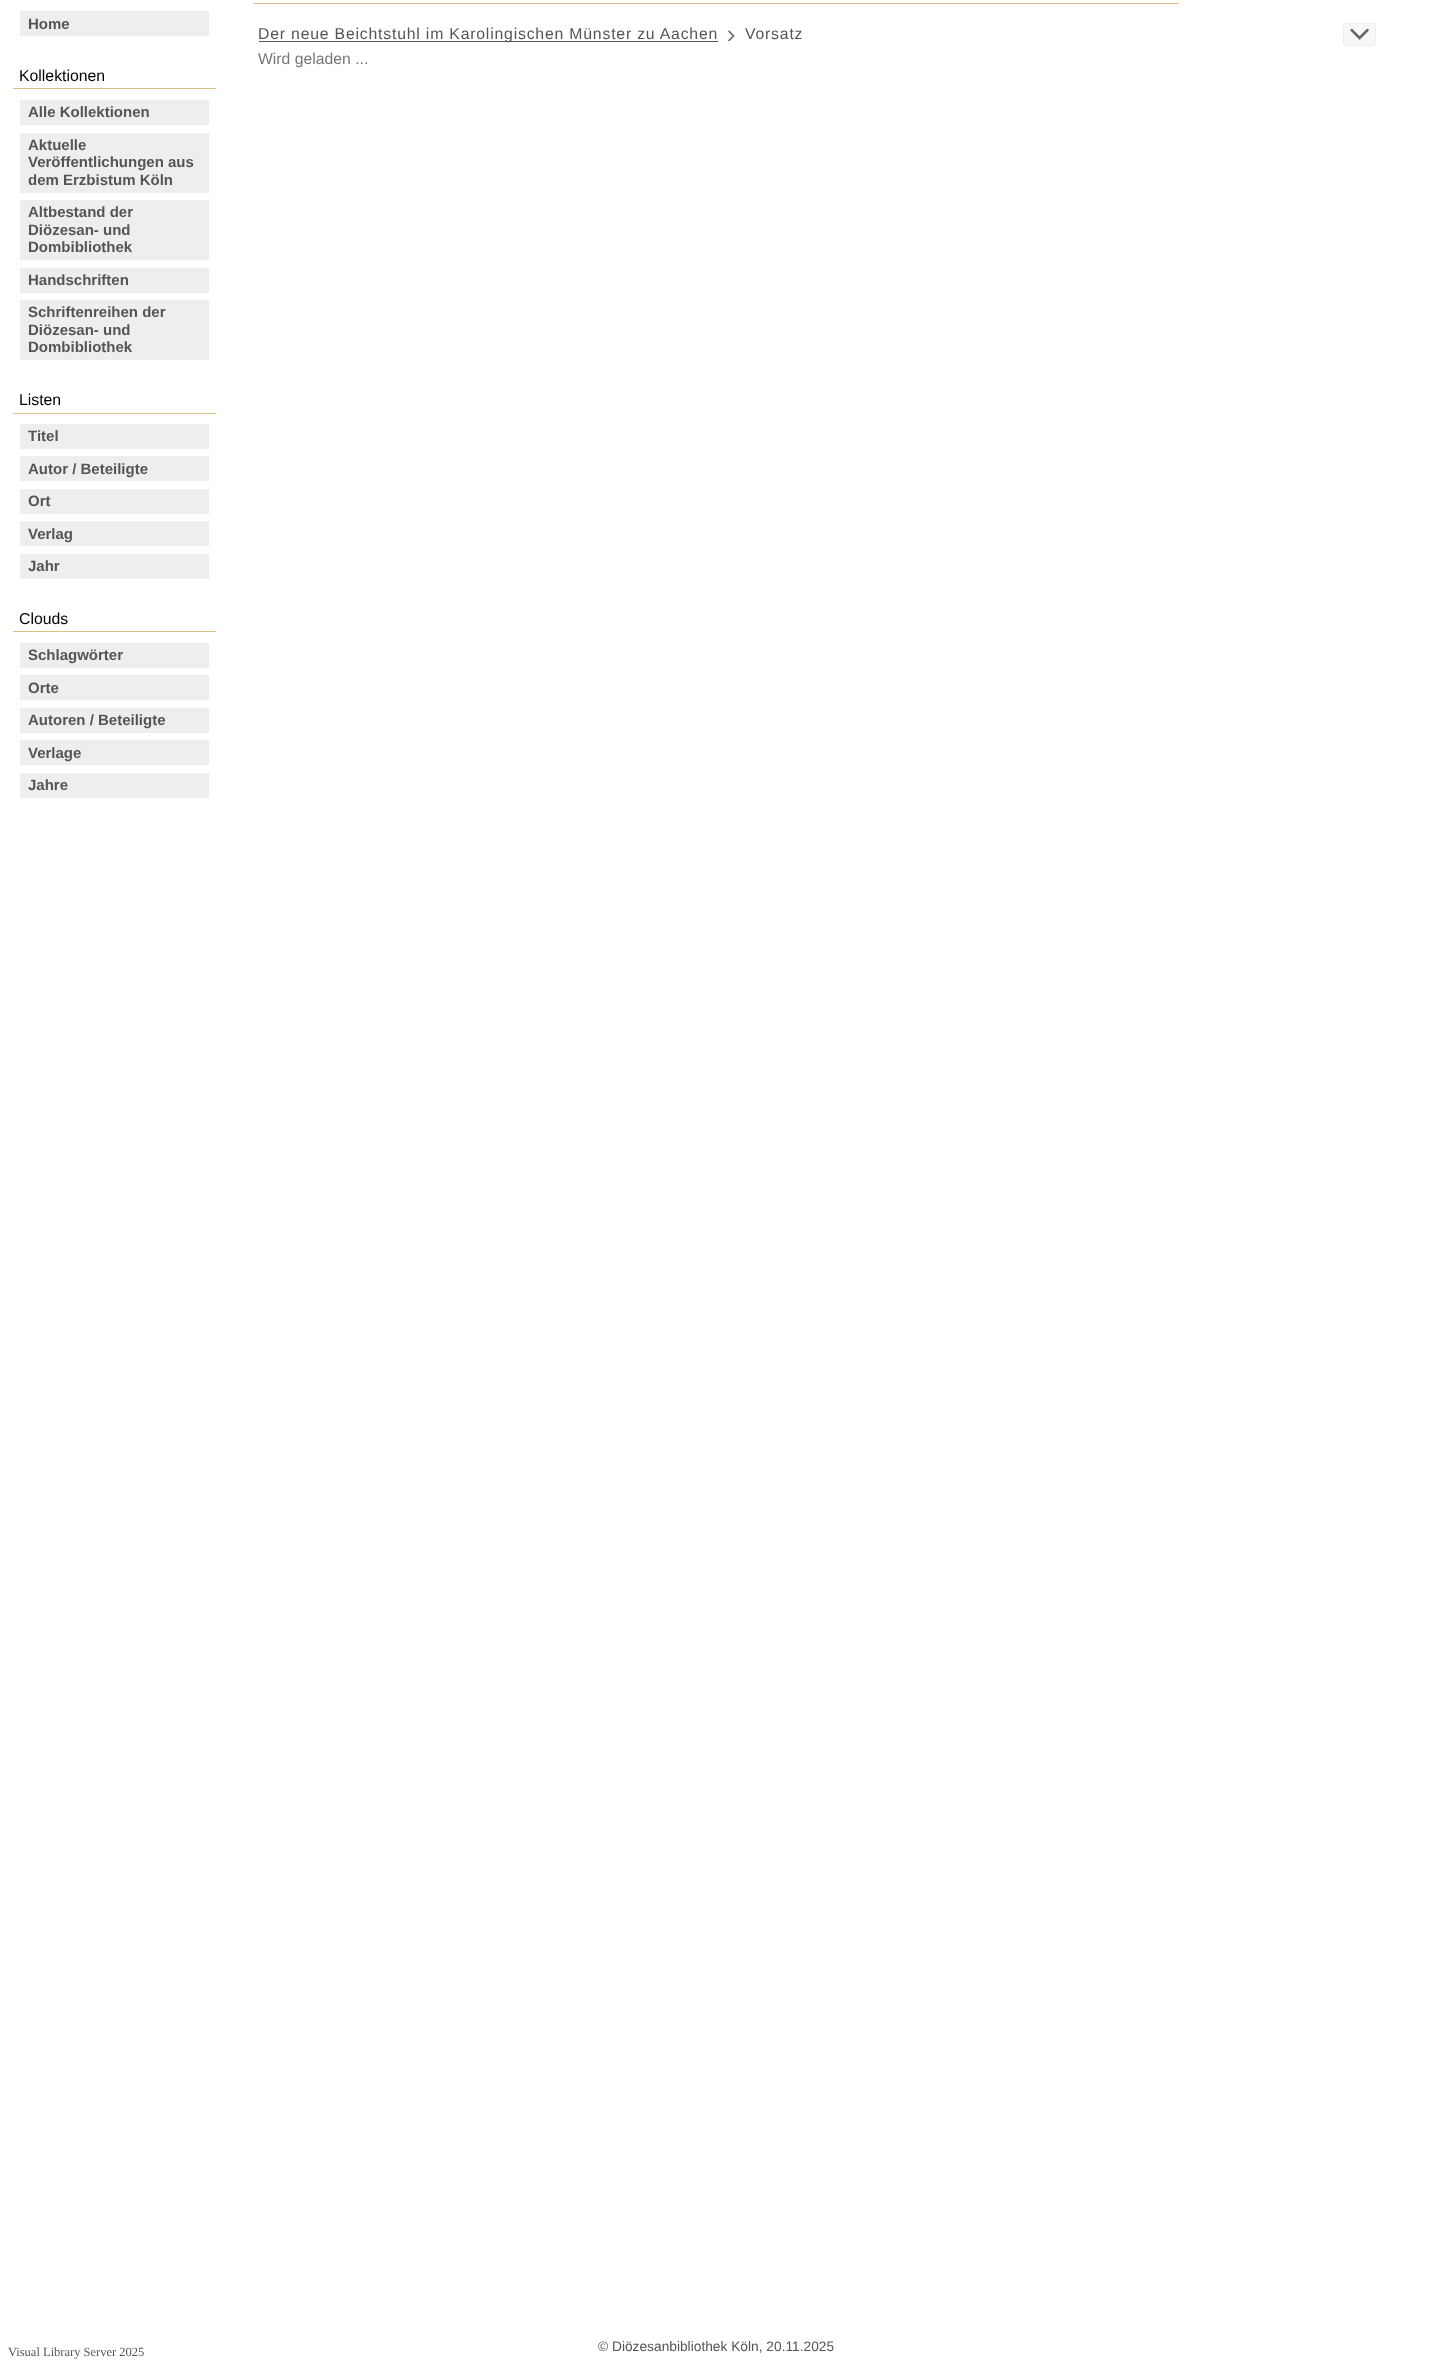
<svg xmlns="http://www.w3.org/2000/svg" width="1432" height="2360">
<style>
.a{font:bold 15px Liberation Sans;fill:#555}
.b{font:15.8px Liberation Sans;fill:#000}
.c{font:15.8px Liberation Sans;letter-spacing:0.8px;fill:#555}
.d{font:15.75px Liberation Sans;fill:#777}
.e{font:12.5px Liberation Serif;fill:#555}
.f{font:13.75px Liberation Sans;fill:#555}
</style>
<rect width="100%" height="100%" fill="#fff"/>
<path fill="#dfbf7f" d="M254 3h924v1H254z"/>
<path fill="#eeeef0" d="M20 11h189v25H20z"/>
<path fill="#dfbf7f" d="M13 88h203v1H13z"/>
<path fill="#eeeef0" d="M20 100h189v25H20z"/>
<path fill="#eeeef0" d="M20 133h189v60H20z"/>
<path fill="#eeeef0" d="M20 200h189v60H20z"/>
<path fill="#eeeef0" d="M20 268h189v25H20z"/>
<path fill="#eeeef0" d="M20 300h189v60H20z"/>
<path fill="#dfbf7f" d="M13 413h203v1H13z"/>
<path fill="#eeeef0" d="M20 424h189v25H20z"/>
<path fill="#eeeef0" d="M20 456h189v25H20z"/>
<path fill="#eeeef0" d="M20 489h189v25H20z"/>
<path fill="#eeeef0" d="M20 521h189v25H20z"/>
<path fill="#eeeef0" d="M20 554h189v25H20z"/>
<path fill="#dfbf7f" d="M13 631h203v1H13z"/>
<path fill="#eeeef0" d="M20 643h189v25H20z"/>
<path fill="#eeeef0" d="M20 675h189v25H20z"/>
<path fill="#eeeef0" d="M20 708h189v25H20z"/>
<path fill="#eeeef0" d="M20 740h189v25H20z"/>
<path fill="#eeeef0" d="M20 773h189v25H20z"/>
<path fill="#555" d="M259 41h459v1H259z"/>
<image href="1.png" x="728" y="30" width="7" height="12"/>
<rect fill="#f7f7f8" stroke="#eee" x="1343.5" y="23.5" width="32" height="22" rx="2"/>
<image href="2.png" x="1350" y="28" width="19" height="12"/>
<text class="a" x="28" y="29">Home</text>
<text class="b" x="19" y="81">Kollektionen</text>
<text class="a" x="28" y="117">Alle Kollektionen</text>
<text class="a" x="28" y="150">Aktuelle</text>
<text class="a" x="28" y="167">Veröffentlichungen aus</text>
<text class="a" x="28" y="185">dem Erzbistum Köln</text>
<text class="a" x="28" y="217">Altbestand der</text>
<text class="a" x="28" y="235">Diözesan- und</text>
<text class="a" x="28" y="252">Dombibliothek</text>
<text class="a" x="28" y="285">Handschriften</text>
<text class="a" x="28" y="317">Schriftenreihen der</text>
<text class="a" x="28" y="335">Diözesan- und</text>
<text class="a" x="28" y="352">Dombibliothek</text>
<text class="b" x="19" y="405">Listen</text>
<text class="a" x="28" y="441">Titel</text>
<text class="a" x="28" y="474">Autor / Beteiligte</text>
<text class="a" x="28" y="506">Ort</text>
<text class="a" x="28" y="539">Verlag</text>
<text class="a" x="28" y="571">Jahr</text>
<text class="b" x="19" y="624">Clouds</text>
<text class="a" x="28" y="660">Schlagwörter</text>
<text class="a" x="28" y="693">Orte</text>
<text class="a" x="28" y="725">Autoren / Beteiligte</text>
<text class="a" x="28" y="758">Verlage</text>
<text class="a" x="28" y="790">Jahre</text>
<text class="c" x="258" y="39">Der neue Beichtstuhl im Karolingischen Münster zu Aachen</text>
<text class="c" x="745" y="39">Vorsatz</text>
<text class="d" x="258" y="64">Wird geladen ...</text>
<text class="e" x="8" y="2356">Visual Library Server 2025</text>
<text class="f" x="598" y="2351">© Diözesanbibliothek Köln, 20.11.2025</text>
</svg>
